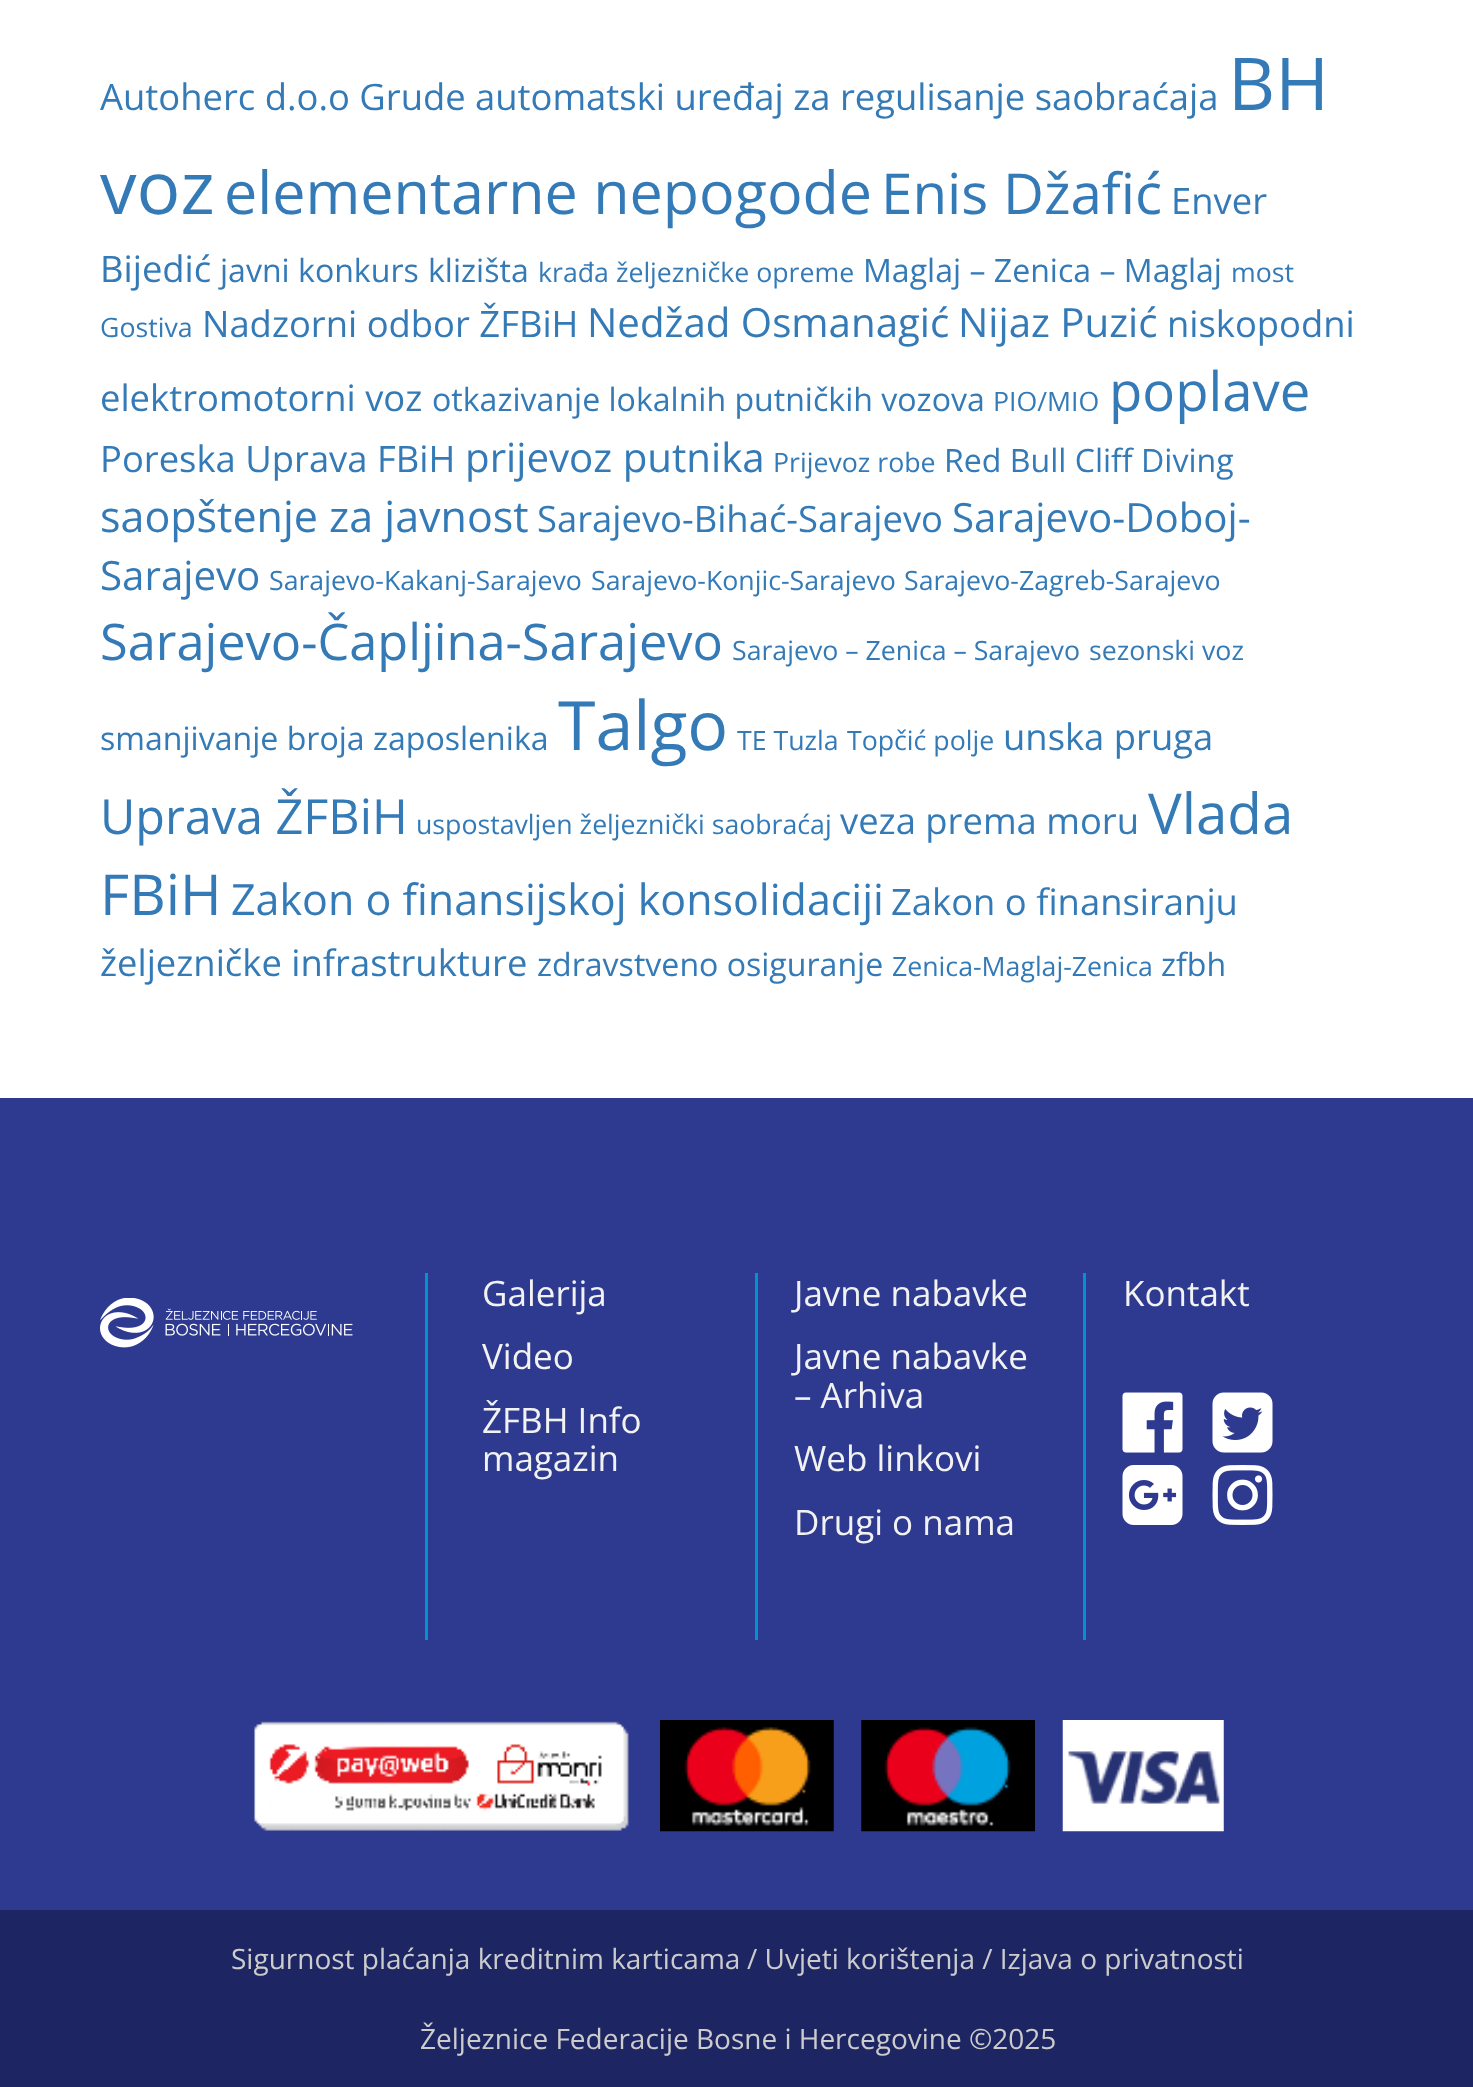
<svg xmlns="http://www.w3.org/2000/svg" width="1473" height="2087">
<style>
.a{font:36.4px Open Sans;fill:#337ab7}
.b{font:73px Open Sans;fill:#337ab7}
.c{font:59.25px Open Sans;fill:#337ab7}
.d{font:56.5px Open Sans;fill:#337ab7}
.e{font:32.1px Open Sans;fill:#337ab7}
.f{font:26.7px Open Sans;fill:#337ab7}
.g{font:40.25px Open Sans;fill:#337ab7}
.h{font:54.5px Open Sans;fill:#337ab7}
.i{font:43px Open Sans;fill:#337ab7}
.j{font:50.5px Open Sans;fill:#337ab7}
.k{font:68px Open Sans;fill:#337ab7}
.l{font:48.5px Open Sans;fill:#337ab7}
.m{font:35px Open Sans;fill:#f2f2f2}
.n{font:28px Open Sans;fill:#ccc}
</style>
<rect width="100%" height="100%" fill="#fff"/>
<path fill="#2d3a8f" d="M0 1098h1473v812H0z"/>
<path fill="#0093d0" d="M425 1273h3v367H425z"/>
<path fill="#0093d0" d="M755 1273h3v367H755z"/>
<path fill="#0093d0" d="M1083 1273h3v367H1083z"/>
<image href="1.png" x="1122" y="1392" width="61" height="61"/>
<image href="2.png" x="1212" y="1392" width="61" height="61"/>
<image href="3.png" x="1122" y="1465" width="61" height="60"/>
<image href="4.png" x="1212" y="1465" width="61" height="60"/>
<image href="5.png" x="100" y="1298" width="253" height="50"/>
<image href="6.png" x="254" y="1721" width="375" height="110"/>
<image href="7.png" x="660" y="1720" width="174" height="112"/>
<image href="8.png" x="861" y="1720" width="174" height="112"/>
<image href="9.png" x="1062" y="1720" width="162" height="112"/>
<path fill="#1d2663" d="M0 1910h1473v177H0z"/>
<text class="a" x="100" y="110">Autoherc d.o.o Grude</text>
<text class="a" x="475" y="110">automatski uređaj za regulisanje saobraćaja</text>
<text class="b" x="1228" y="110">BH</text>
<text class="b" x="100" y="214">voz</text>
<text class="c" x="224" y="214">elementarne nepogode</text>
<text class="d" x="881" y="214">Enis Džafić</text>
<text class="a" x="1171" y="214">Enver</text>
<text class="a" x="100" y="282">Bijedić</text>
<text class="e" x="220" y="282">javni konkurs</text>
<text class="e" x="428" y="282">klizišta</text>
<text class="f" x="538" y="282">krađa željezničke opreme</text>
<text class="e" x="863" y="282">Maglaj – Zenica – Maglaj</text>
<text class="f" x="1231" y="282">most</text>
<text class="f" x="100" y="337">Gostiva</text>
<text class="a" x="202" y="337">Nadzorni odbor ŽFBiH</text>
<text class="g" x="587" y="337">Nedžad Osmanagić</text>
<text class="g" x="958" y="337">Nijaz Puzić</text>
<text class="a" x="1167" y="337">niskopodni</text>
<text class="a" x="100" y="411">elektromotorni voz</text>
<text class="e" x="432" y="411">otkazivanje lokalnih putničkih vozova</text>
<text class="f" x="993" y="411">PIO/MIO</text>
<text class="h" x="1109" y="411">poplave</text>
<text class="a" x="100" y="472">Poreska Uprava FBiH</text>
<text class="g" x="465" y="472">prijevoz putnika</text>
<text class="f" x="773" y="472">Prijevoz robe</text>
<text class="e" x="944" y="472">Red Bull Cliff Diving</text>
<text class="i" x="100" y="532">saopštenje za javnost</text>
<text class="a" x="537" y="532">Sarajevo-Bihać-Sarajevo</text>
<text class="g" x="952" y="532">Sarajevo-Doboj-</text>
<text class="g" x="100" y="590">Sarajevo</text>
<text class="f" x="269" y="590">Sarajevo-Kakanj-Sarajevo</text>
<text class="f" x="591" y="590">Sarajevo-Konjic-Sarajevo</text>
<text class="f" x="904" y="590">Sarajevo-Zagreb-Sarajevo</text>
<text class="j" x="100" y="660">Sarajevo-Čapljina-Sarajevo</text>
<text class="f" x="732" y="660">Sarajevo – Zenica – Sarajevo</text>
<text class="f" x="1089" y="660">sezonski voz</text>
<text class="e" x="100" y="750">smanjivanje broja zaposlenika</text>
<text class="k" x="558" y="750">Talgo</text>
<text class="f" x="737" y="750">TE Tuzla</text>
<text class="f" x="847" y="750">Topčić polje</text>
<text class="a" x="1003" y="750">unska pruga</text>
<text class="l" x="100" y="834">Uprava ŽFBiH</text>
<text class="f" x="416" y="834">uspostavljen željeznički saobraćaj</text>
<text class="a" x="840" y="834">veza prema moru</text>
<text class="d" x="1148" y="834">Vlada</text>
<text class="d" x="100" y="915">FBiH</text>
<text class="i" x="231" y="915">Zakon o finansijskoj konsolidaciji</text>
<text class="a" x="891" y="915">Zakon o finansiranju</text>
<text class="a" x="100" y="976">željezničke infrastrukture</text>
<text class="e" x="537" y="976">zdravstveno osiguranje</text>
<text class="f" x="892" y="976">Zenica-Maglaj-Zenica</text>
<text class="e" x="1161" y="976">zfbh</text>
<text class="m" x="482" y="1306">Galerija</text>
<text class="m" x="482" y="1369">Video</text>
<text class="m" x="482" y="1433">ŽFBH Info</text>
<text class="m" x="482" y="1471">magazin</text>
<text class="m" x="794" y="1306">Javne nabavke</text>
<text class="m" x="794" y="1369">Javne nabavke</text>
<text class="m" x="794" y="1408">– Arhiva</text>
<text class="m" x="794" y="1471">Web linkovi</text>
<text class="m" x="794" y="1535">Drugi o nama</text>
<text class="m" x="1123" y="1306">Kontakt</text>
<text class="n" x="231" y="1969">Sigurnost plaćanja kreditnim karticama</text>
<text class="n" x="747" y="1969">/ Uvjeti korištenja / Izjava o privatnosti</text>
<text class="n" x="420" y="2049">Željeznice Federacije Bosne i Hercegovine ©2025</text>
</svg>
